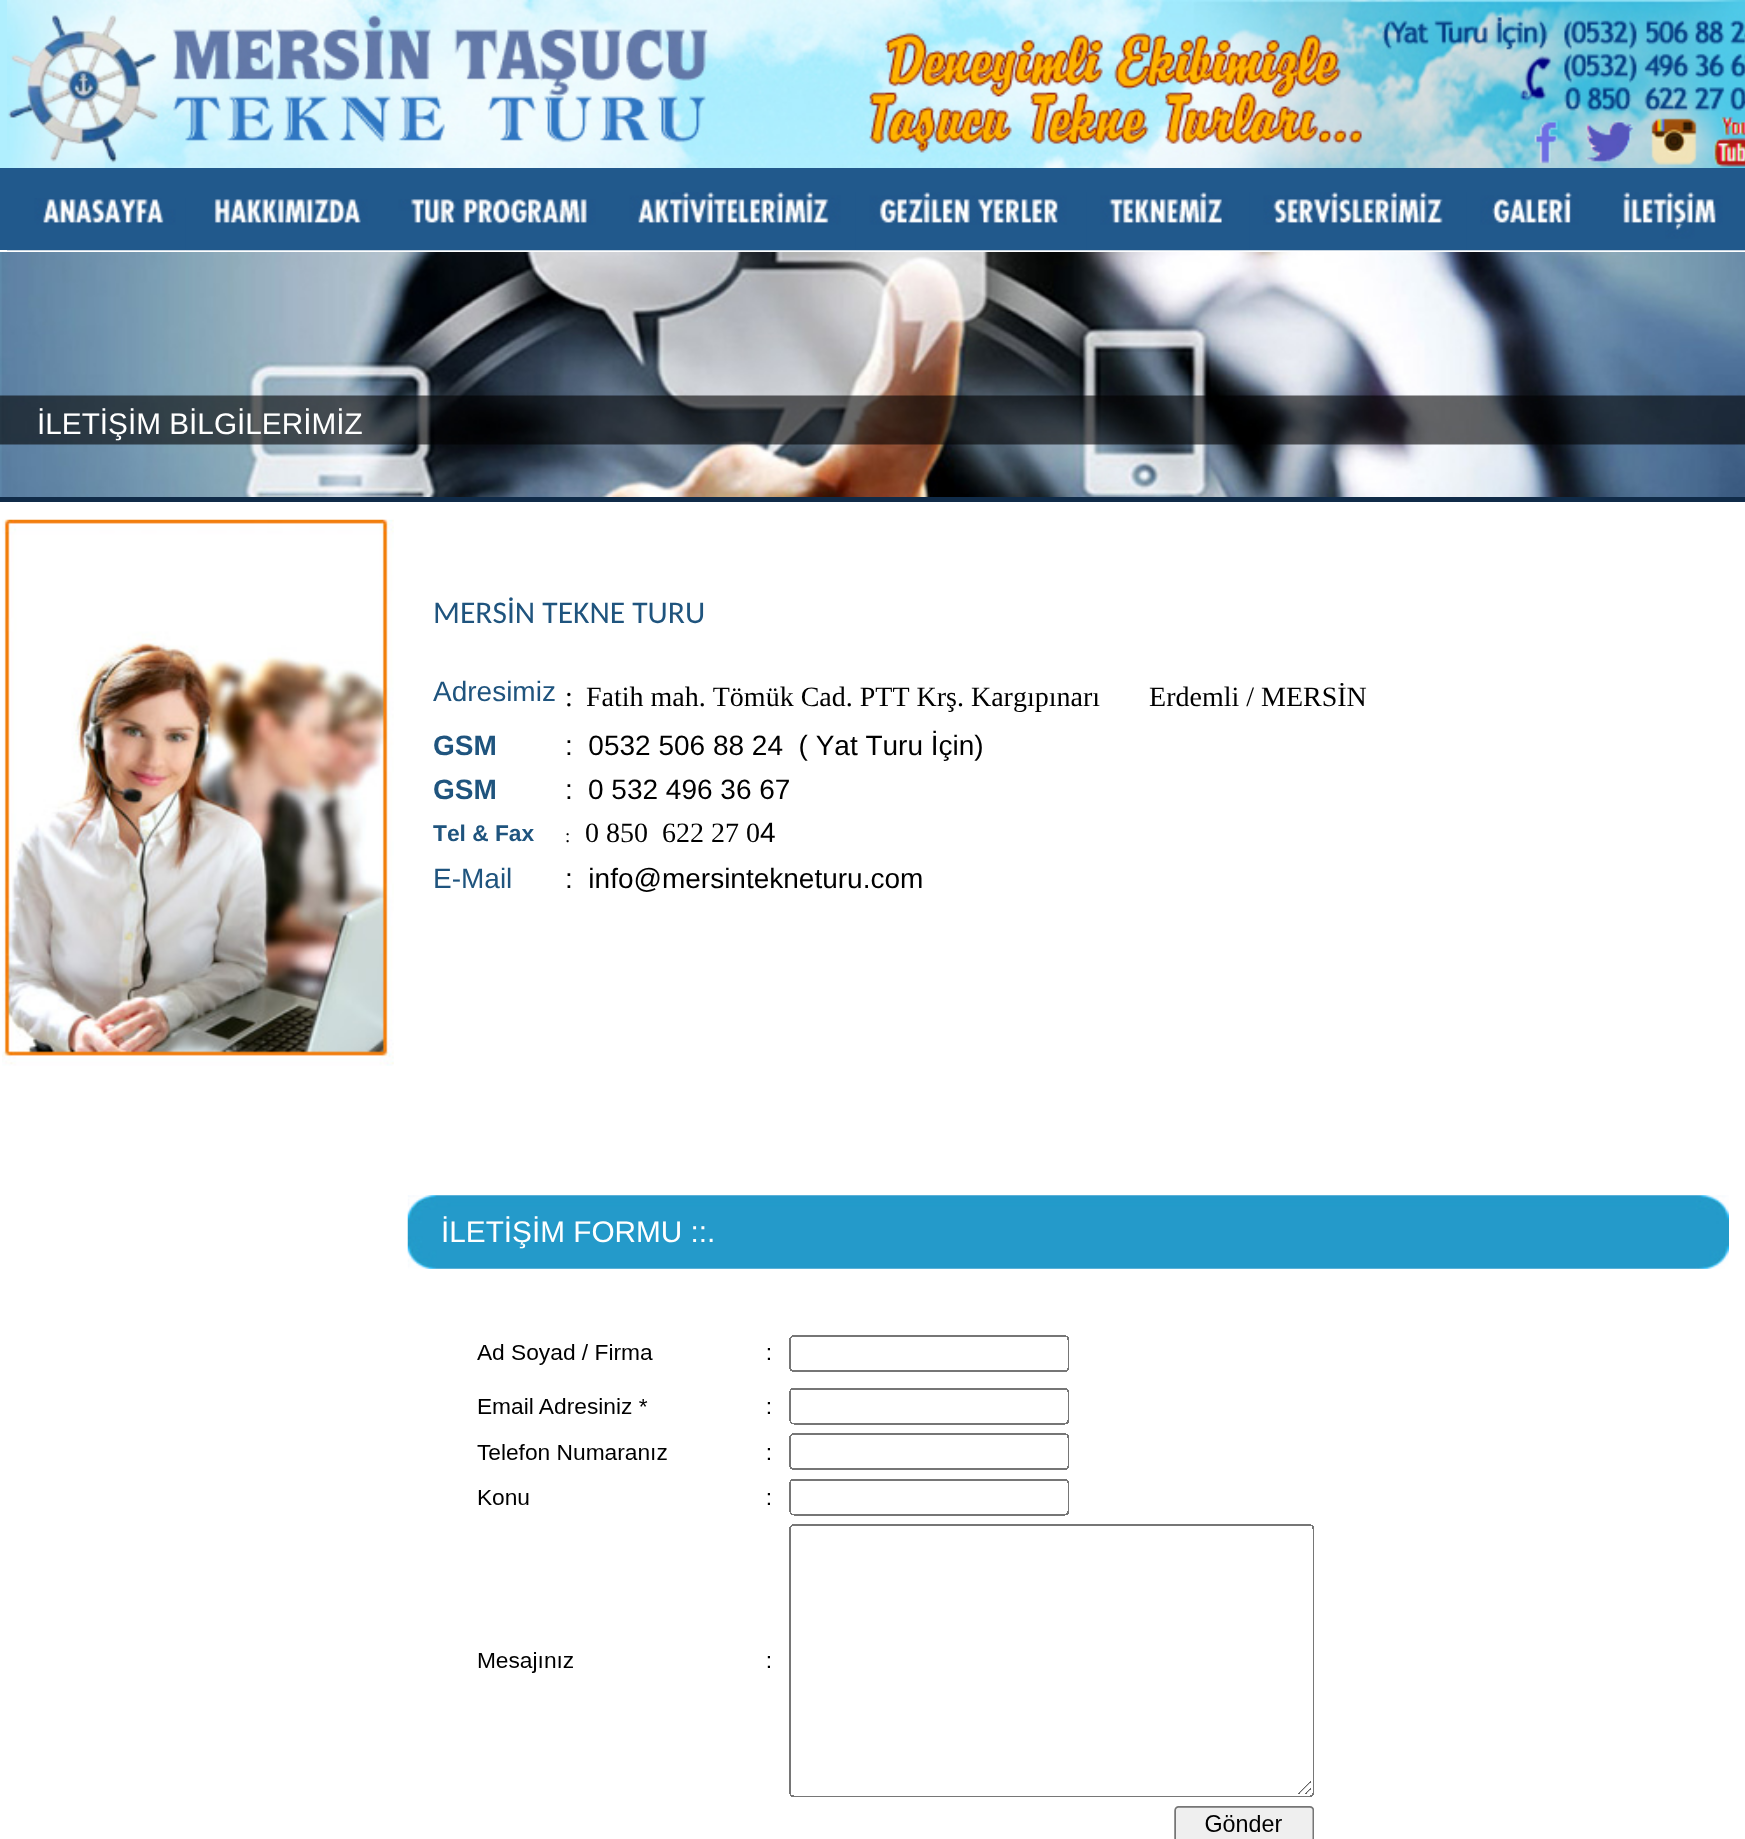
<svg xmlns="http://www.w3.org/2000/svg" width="1745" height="1839">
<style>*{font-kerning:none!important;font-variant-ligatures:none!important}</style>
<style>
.a{font:29.75px Liberation Sans;fill:#fff}
.b{font:31.5px Carlito;fill:#1f547e}
.c{font:28px Liberation Sans;fill:#1f547e}
.d{font:28px Liberation Serif;fill:#000}
.e{font:bold 28px Liberation Sans;fill:#1f547e}
.f{font:28px Liberation Sans;fill:#000}
.g{font:bold 22.75px Liberation Sans;fill:#1f547e}
.h{font:19px Liberation Serif;fill:#000}
</style>
<rect width="100%" height="100%" fill="#b0effe"/>
<image href="1.png" x="7" y="0" width="1738" height="168"/>
<path fill="#21598c" d="M0 168h1745v82H0z"/>
<path fill="#fff" d="M0 250h1745v2H0z"/>
<image href="2.png" x="7" y="198" width="179" height="53"/>
<image href="3.png" x="185" y="199" width="200" height="52"/>
<image href="4.png" x="385" y="199" width="231" height="52"/>
<image href="5.png" x="616" y="192" width="240" height="59"/>
<image href="6.png" x="855" y="192" width="232" height="59"/>
<image href="7.png" x="1086" y="192" width="164" height="59"/>
<image href="8.png" x="1249" y="192" width="218" height="59"/>
<image href="9.png" x="1466" y="192" width="130" height="59"/>
<image href="10.png" x="1596" y="192" width="149" height="59"/>
<image href="11.png" x="0" y="252" width="1745" height="245"/>
<path fill="#102b48" d="M0 497h1745v5H0z"/>
<path fill="#fff" d="M0 502h1745v1337H0z"/>
<image href="12.png" x="2" y="519" width="392" height="547"/>
<image href="13.png" x="407" y="1195" width="1322" height="74"/>
<image href="14.png" x="477" y="1335" width="837" height="504"/>
<text class="a" x="37" y="434">İLETİŞİM BİLGİLERİMİZ</text>
<text class="b" x="433" y="623">MERSİN TEKNE TURU</text>
<text class="c" x="433" y="701">Adresimiz</text>
<text class="d" x="565" y="706">:</text>
<text class="d" xml:space="preserve" x="586" y="706">Fatih mah. Tömük Cad. PTT Krş. Kargıpınarı       Erdemli / MERSİN</text>
<text class="e" x="433" y="755">GSM</text>
<text class="f" xml:space="preserve" x="565" y="755">:  0532 506 88 24  ( Yat Turu İçin)</text>
<text class="e" x="433" y="799">GSM</text>
<text class="f" x="565" y="799">:</text>
<text class="f" x="588" y="799">0 532 496 36 67</text>
<text class="g" x="433" y="841">Tel &amp; Fax</text>
<text class="h" x="565" y="842">:</text>
<text class="d" xml:space="preserve" x="585" y="842">0 850  622 27 0</text>
<text class="f" x="760" y="842">4</text>
<text class="c" x="433" y="888">E-Mail</text>
<text class="f" xml:space="preserve" x="565" y="888">:  info@mersintekneturu.com</text>
<text class="a" x="441" y="1242">İLETİŞİM FORMU ::.</text>
</svg>
